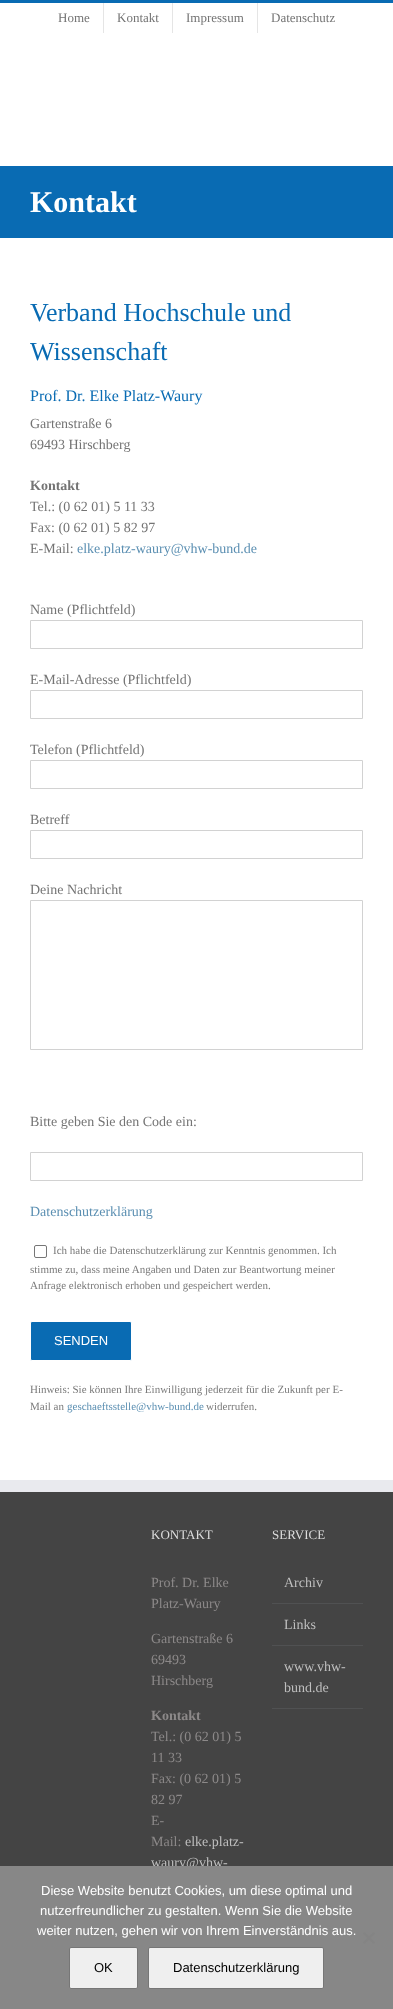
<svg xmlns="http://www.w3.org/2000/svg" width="393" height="2009">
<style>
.a{font:13px Liberation Serif;fill:#747474}
.b{font:bold 30px Liberation Serif;fill:#fff}
.c{font:26px Liberation Serif;fill:#096bb3}
.d{font:16px Liberation Serif;fill:#096bb3}
.e{font:14px Liberation Serif;fill:#747474}
.f{font:bold 14px Liberation Serif;fill:#747474}
.g{font:14px Liberation Serif;fill:#5b8fb2}
.h{font:11px Liberation Serif;fill:#7a7a7a}
.i{font:13px Liberation Sans;fill:#fff}
.j{font:11px Liberation Serif;fill:#5b8fb2}
.k{font:13px Liberation Serif;fill:#ddd}
.l{font:14px Liberation Serif;fill:#8c8989}
.m{font:bold 14px Liberation Serif;fill:#8c8989}
.n{font:14px Liberation Serif;fill:#bfbfbf}
.o{font:13px Liberation Sans;fill:#000}
</style>
<rect width="100%" height="100%" fill="#fff"/>
<path fill="#096bb3" d="M0 0h393v3H0z"/>
<path fill="#e5e5e5" d="M103 3h1v30H103z"/>
<path fill="#e5e5e5" d="M172 3h1v30H172z"/>
<path fill="#e5e5e5" d="M257 3h1v30H257z"/>
<path fill="#096bb3" d="M0 166h393v72H0z"/>
<path fill="none" stroke="#d2d2d2" d="M30.5 620.5h332v28H30.5z"/>
<path fill="none" stroke="#d2d2d2" d="M30.5 690.5h332v28H30.5z"/>
<path fill="none" stroke="#d2d2d2" d="M30.5 760.5h332v28H30.5z"/>
<path fill="none" stroke="#d2d2d2" d="M30.5 830.5h332v28H30.5z"/>
<path fill="none" stroke="#d2d2d2" d="M30.5 900.5h332v149H30.5z"/>
<path fill="none" stroke="#d2d2d2" d="M30.5 1152.5h332v28H30.5z"/>
<rect fill="none" stroke="#767676" x="34.5" y="1245.5" width="12" height="12" rx="1.5"/>
<rect fill="#096bb3" stroke="#fff" x="30.5" y="1321.5" width="101" height="39" rx="1.5"/>
<path fill="#444" d="M0 1492h393v374H0z"/>
<path fill="#e9eaee" d="M0 1480h393v12H0z"/>
<path fill="#505152" d="M272 1603h91v1H272z"/>
<path fill="#505152" d="M272 1645h91v1H272z"/>
<path fill="#505152" d="M272 1708h91v1H272z"/>
<text class="a" x="58" y="22">Home</text>
<text class="a" x="117" y="22">Kontakt</text>
<text class="a" x="186" y="22">Impressum</text>
<text class="a" x="271" y="22">Datenschutz</text>
<text class="b" x="30" y="212">Kontakt</text>
<text class="c" x="30" y="321">Verband Hochschule und</text>
<text class="c" x="30" y="360">Wissenschaft</text>
<text class="d" x="30" y="401">Prof. Dr. Elke Platz-Waury</text>
<text class="e" x="30" y="428">Gartenstraße 6</text>
<text class="e" x="30" y="449">69493 Hirschberg</text>
<text class="f" x="30" y="490">Kontakt</text>
<text class="e" x="30" y="511">Tel.: (0 62 01) 5 11 33</text>
<text class="e" x="30" y="532">Fax: (0 62 01) 5 82 97</text>
<text class="e" x="30" y="553">E-Mail:</text>
<text class="g" x="77" y="553">elke.platz-waury@vhw-bund.de</text>
<text class="e" x="30" y="614">Name (Pflichtfeld)</text>
<text class="e" x="30" y="684">E-Mail-Adresse (Pflichtfeld)</text>
<text class="e" x="30" y="754">Telefon (Pflichtfeld)</text>
<text class="e" x="30" y="824">Betreff</text>
<text class="e" x="30" y="894">Deine Nachricht</text>
<text class="e" x="30" y="1126">Bitte geben Sie den Code ein:</text>
<text class="g" x="30" y="1216">Datenschutzerklärung</text>
<text class="h" x="53" y="1254">Ich habe die Datenschutzerklärung zur Kenntnis genommen. Ich</text>
<text class="h" x="30" y="1273">stimme zu, dass meine Angaben und Daten zur Beantwortung meiner</text>
<text class="h" x="30" y="1289">Anfrage elektronisch erhoben und gespeichert werden.</text>
<text class="i" x="54" y="1345">SENDEN</text>
<text class="h" x="30" y="1393">Hinweis: Sie können Ihre Einwilligung jederzeit für die Zukunft per E-</text>
<text class="h" x="30" y="1410">Mail an</text>
<text class="j" x="67" y="1410">geschaeftsstelle@vhw-bund.de</text>
<text class="h" x="206" y="1410">widerrufen.</text>
<text class="k" x="151" y="1539">KONTAKT</text>
<text class="l" x="151" y="1587">Prof. Dr. Elke</text>
<text class="l" x="151" y="1608">Platz-Waury</text>
<text class="l" x="151" y="1643">Gartenstraße 6</text>
<text class="l" x="151" y="1664">69493</text>
<text class="l" x="151" y="1685">Hirschberg</text>
<text class="m" x="151" y="1720">Kontakt</text>
<text class="l" x="151" y="1741">Tel.: (0 62 01) 5</text>
<text class="l" x="151" y="1762">11 33</text>
<text class="l" x="151" y="1783">Fax: (0 62 01) 5</text>
<text class="l" x="151" y="1804">82 97</text>
<text class="l" x="151" y="1825">E-</text>
<text class="l" x="151" y="1846">Mail:</text>
<text class="n" x="185" y="1846">elke.platz-</text>
<text class="n" x="151" y="1867">waury@vhw-</text>
<text class="k" x="272" y="1539">SERVICE</text>
<text class="n" x="284" y="1587">Archiv</text>
<text class="n" x="284" y="1629">Links</text>
<text class="n" x="284" y="1671">www.vhw-</text>
<text class="n" x="284" y="1692">bund.de</text>
<path fill="#878787" d="M0 1866h393v143H0z"/>
<text class="i" x="41" y="1895">Diese Website benutzt Cookies, um diese optimal und</text>
<text class="i" x="40" y="1915">nutzerfreundlicher zu gestalten. Wenn Sie die Website</text>
<text class="i" x="37" y="1935">weiter nutzen, gehen wir von Ihrem Einverständnis aus.</text>
<path fill="#848484" d="M373.5 1932l1.5 1.5l-10.5 10.5l-1.5-1.5z"/>
<path fill="#848484" d="M363 1933.5l1.5-1.5l10.5 10.5l-1.5 1.5z"/>
<rect fill="#efefef" stroke="#767676" x="69.5" y="1947.5" width="68" height="41" rx="1.5"/>
<text class="o" x="94" y="1972">OK</text>
<rect fill="#efefef" stroke="#767676" x="148.5" y="1947.5" width="175" height="41" rx="1.5"/>
<text class="o" x="173" y="1972">Datenschutzerklärung</text>
</svg>
